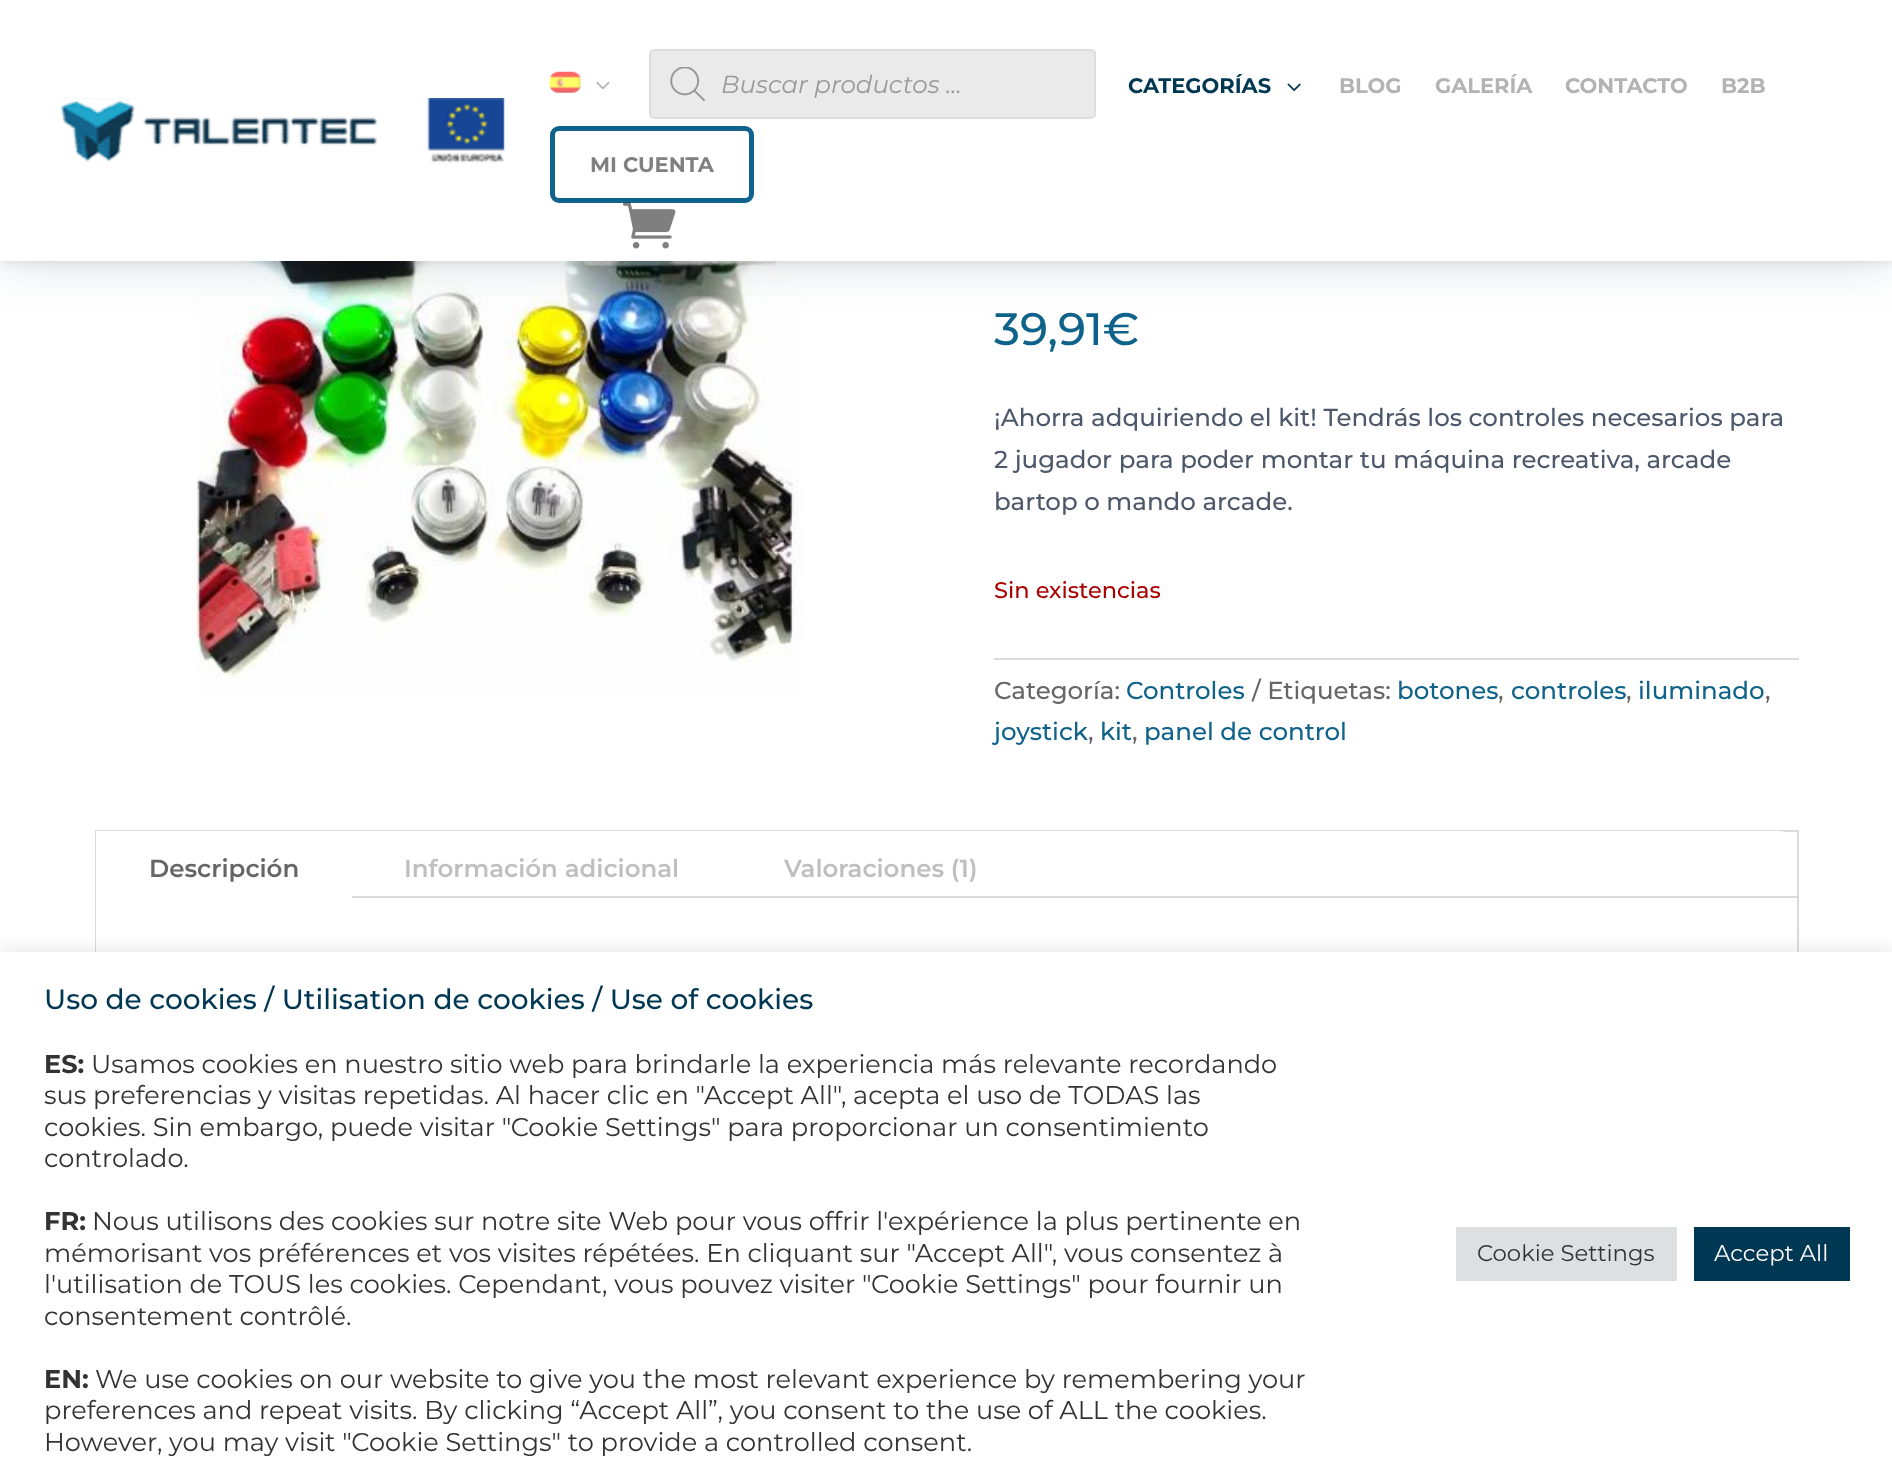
<svg xmlns="http://www.w3.org/2000/svg" width="1892" height="1481">
<style>
.a{font:italic 24.5px Montserrat;fill:#999}
.b{font:bold 21px Montserrat;fill:#003753}
.c{font:bold 21px Montserrat;fill:#b3b3b3}
.d{font:bold 21px Montserrat;fill:#808080}
.e{font:500 45.5px Montserrat;fill:#0f628a}
.f{font:500 24.5px Montserrat;fill:#4e586b}
.g{font:500 22.5px Montserrat;fill:#a00}
.h{font:500 24.5px Montserrat;fill:#666}
.i{font:500 24.5px Montserrat;fill:#0f628a}
.j{font:600 24.5px Montserrat;fill:#666}
.k{font:600 24.5px Montserrat;fill:#bfbfbf}
.l{font:500 28px Montserrat;fill:#003753}
.m{font:bold 25.65px Montserrat;fill:#333}
.n{font:25.65px Montserrat;fill:#333}
.o{font:22.75px Montserrat;fill:#333}
.p{font:22.75px Montserrat;fill:#fff}
</style>
<defs>
<clipPath id="clip1"><path d="M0 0h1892v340h-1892zm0 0h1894v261h-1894z" clip-rule="evenodd"/></clipPath>
</defs>
<rect width="100%" height="100%" fill="#fff"/>
<image href="7.png" x="196" y="261" width="607" height="433"/>
<path fill="#0000001a" filter="blur(6px)" d="M0 0h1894v261H0z"/>
<path fill="#fff" d="M0 0h1892v261H0z"/>
<g clip-path="url(#clip1)">
<path fill="#0733542b" filter="blur(26px)" d="M0 0h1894v261H0z"/>
</g>
<image href="1.png" x="60" y="98" width="445" height="65"/>
<image href="2.png" x="549" y="71" width="33" height="22"/>
<image href="3.png" x="596" y="81" width="14" height="9"/>
<rect fill="#eaeaea" stroke="#ddd" stroke-width="2" x="650" y="50" width="445" height="68" rx="4"/>
<image href="4.png" x="670" y="67" width="35" height="35"/>
<image href="5.png" x="1287" y="83" width="14" height="8"/>
<rect fill="none" stroke="#10638d" stroke-width="5" x="552.5" y="128.5" width="199" height="72" rx="6.5"/>
<image href="6.png" x="622" y="202" width="54" height="47"/>
<path fill="#dadada" d="M994 658h805v2H994z"/>
<path fill="none" stroke="#d9d9d9" stroke-width="2" d="M96 831h1702v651H96z"/>
<path fill="#fff" d="M114 831h1665c10 0 18 8 18 18v51h-1701v-51c0-10 8-18 18-18z"/>
<path fill="#fff" d="M96 831h17v17H96z"/>
<path fill="#d9d9d9" d="M352 896h1445v2H352z"/>
<path fill="#fff" d="M96 900h1v52H96z"/>
<path fill="#acabab4d" filter="blur(9px)" d="M0 950h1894v531H0z"/>
<path fill="#fff" d="M0 952h1892v529H0z"/>
<path fill="#dedfe0" d="M1456 1227h221v54H1456z"/>
<path fill="#003753" d="M1694 1227h156v54H1694z"/>
<text class="a" x="721" y="93">Buscar productos ...</text>
<text class="b" x="1128" y="93">CATEGORÍAS</text>
<text class="c" x="1339" y="93">BLOG</text>
<text class="c" x="1435" y="93">GALERÍA</text>
<text class="c" x="1565" y="93">CONTACTO</text>
<text class="c" x="1721" y="93">B2B</text>
<text class="d" x="590" y="172">MI CUENTA</text>
<text class="e" x="994" y="345">39,91€</text>
<text class="f" x="994" y="426">¡Ahorra adquiriendo el kit! Tendrás los controles necesarios para</text>
<text class="f" x="994" y="468">2 jugador para poder montar tu máquina recreativa, arcade</text>
<text class="f" x="994" y="510">bartop o mando arcade.</text>
<text class="g" x="994" y="598">Sin existencias</text>
<text class="h" x="994" y="699">Categoría:</text>
<text class="i" x="1126" y="699">Controles</text>
<text class="h" x="1252" y="699">/ Etiquetas:</text>
<text class="i" x="1397" y="699">botones</text>
<text class="h" x="1498" y="699">,</text>
<text class="i" x="1511" y="699">controles</text>
<text class="h" x="1626" y="699">,</text>
<text class="i" x="1638" y="699">iluminado</text>
<text class="h" x="1765" y="699">,</text>
<text class="i" x="994" y="740">joystick</text>
<text class="h" x="1088" y="740">,</text>
<text class="i" x="1100" y="740">kit</text>
<text class="h" x="1132" y="740">,</text>
<text class="i" x="1144" y="740">panel de control</text>
<text class="j" x="149" y="877">Descripción</text>
<text class="k" x="404" y="877">Información adicional</text>
<text class="k" x="784" y="877">Valoraciones (1)</text>
<text class="l" x="44" y="1009">Uso de cookies / Utilisation de cookies / Use of cookies</text>
<text class="m" x="44" y="1073">ES:</text>
<text class="n" x="91" y="1073">Usamos cookies en nuestro sitio web para brindarle la experiencia más relevante recordando</text>
<text class="n" x="44" y="1104">sus preferencias y visitas repetidas. Al hacer clic en "Accept All", acepta el uso de TODAS las</text>
<text class="n" x="44" y="1136">cookies. Sin embargo, puede visitar "Cookie Settings" para proporcionar un consentimiento</text>
<text class="n" x="44" y="1167">controlado.</text>
<text class="m" x="44" y="1230">FR:</text>
<text class="n" x="92" y="1230">Nous utilisons des cookies sur notre site Web pour vous offrir l'expérience la plus pertinente en</text>
<text class="n" x="44" y="1262">mémorisant vos préférences et vos visites répétées. En cliquant sur "Accept All", vous consentez à</text>
<text class="n" x="44" y="1293">l'utilisation de TOUS les cookies. Cependant, vous pouvez visiter "Cookie Settings" pour fournir un</text>
<text class="n" x="44" y="1325">consentement contrôlé.</text>
<text class="m" x="44" y="1388">EN:</text>
<text class="n" x="95" y="1388">We use cookies on our website to give you the most relevant experience by remembering your</text>
<text class="n" x="44" y="1419">preferences and repeat visits. By clicking “Accept All”, you consent to the use of ALL the cookies.</text>
<text class="n" x="44" y="1451">However, you may visit "Cookie Settings" to provide a controlled consent.</text>
<text class="o" x="1477" y="1261">Cookie Settings</text>
<text class="p" x="1714" y="1261">Accept All</text>
</svg>
